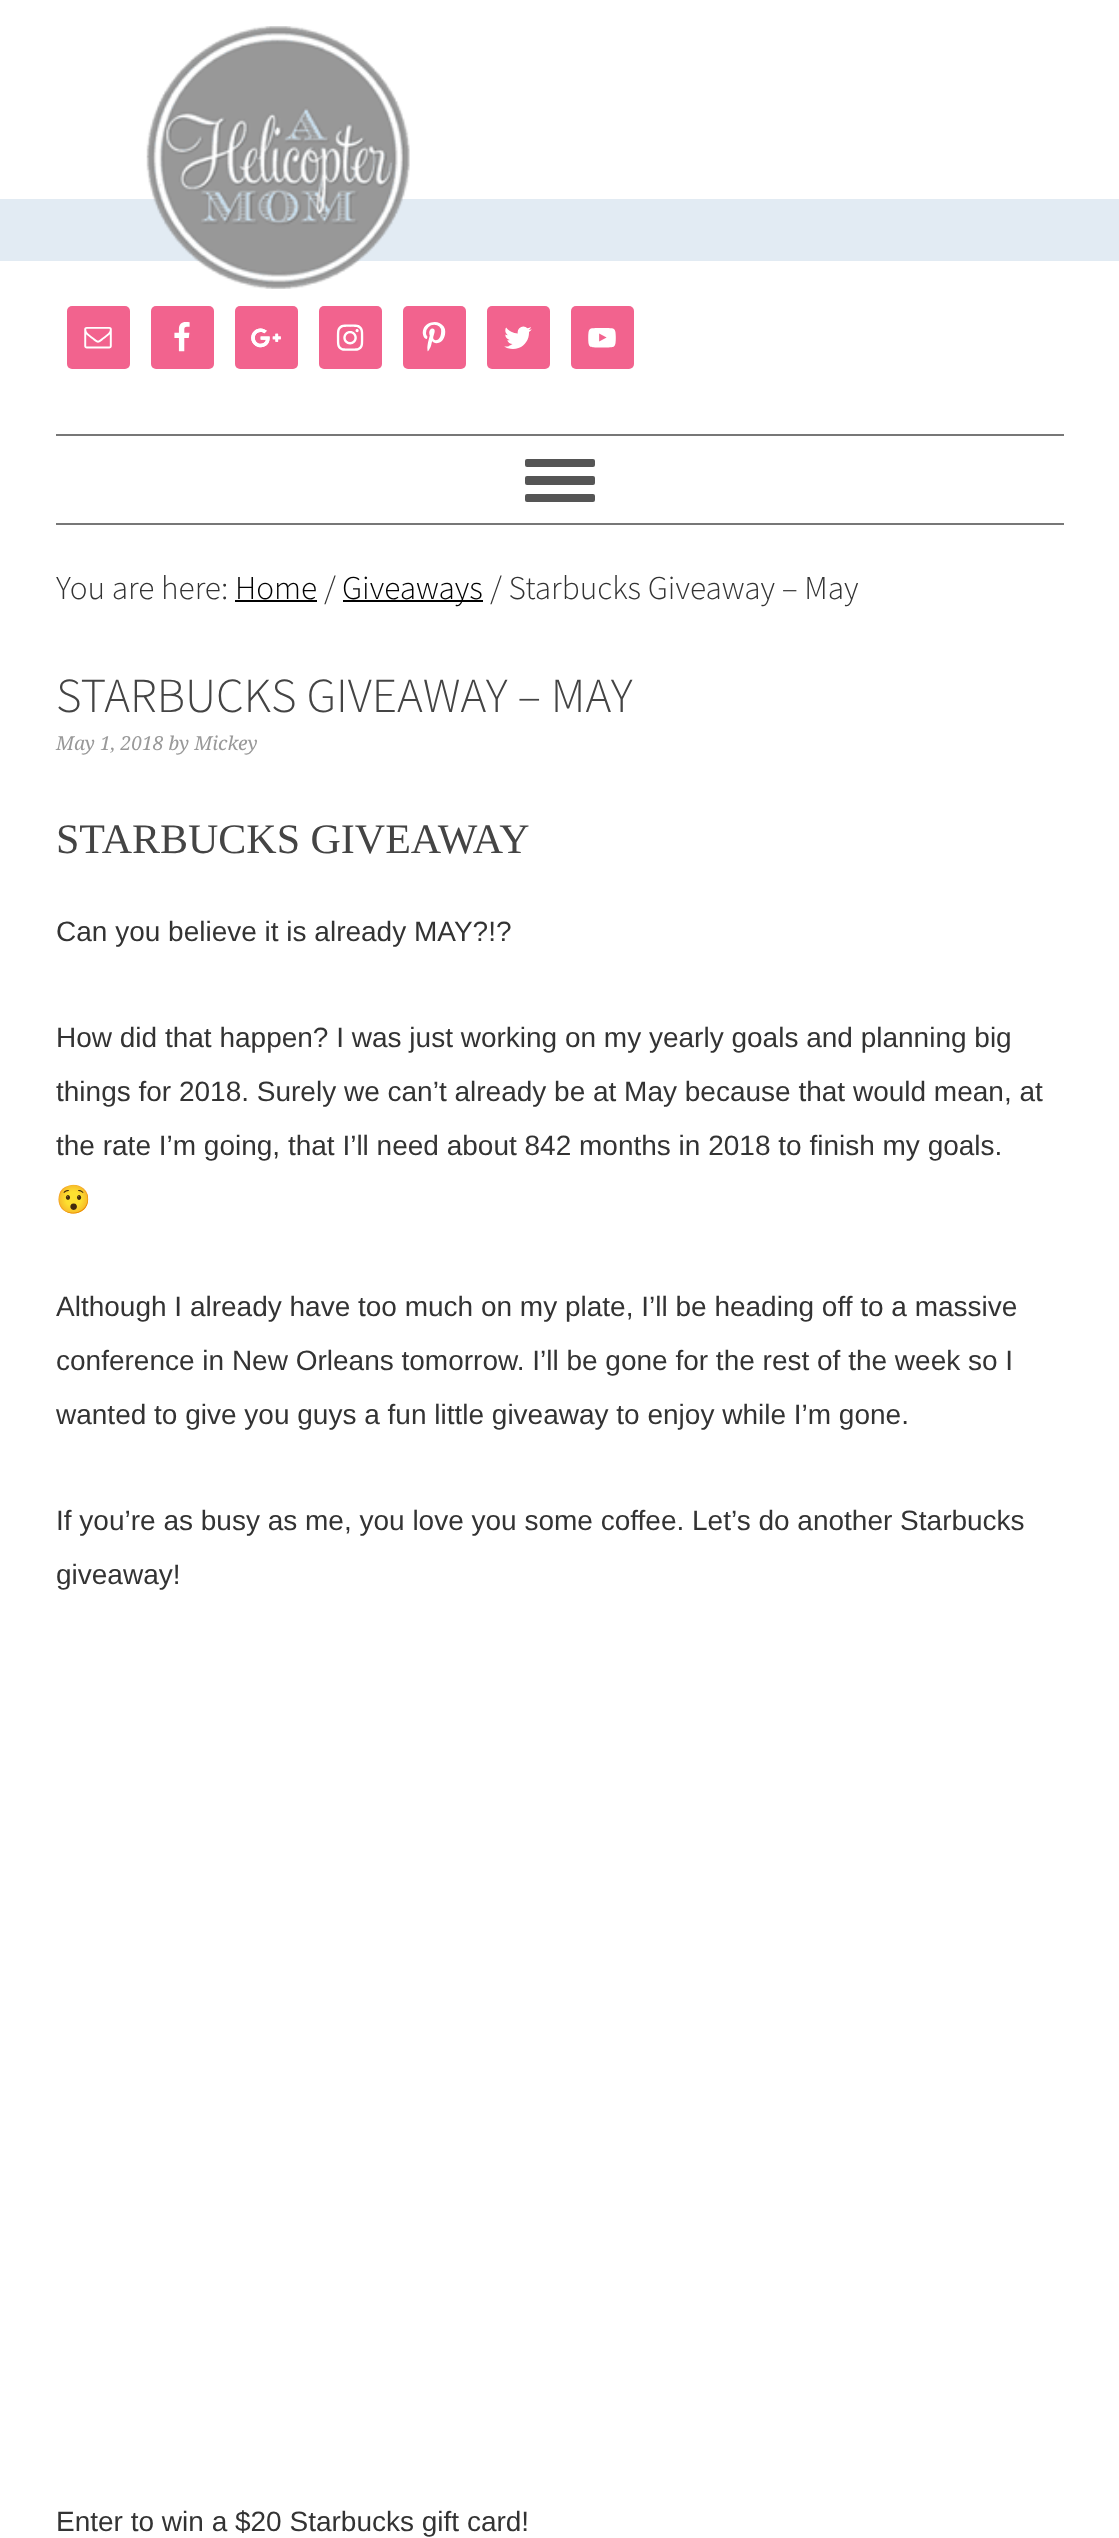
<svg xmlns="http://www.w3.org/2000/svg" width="1119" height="2538">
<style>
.a{font:300 33.25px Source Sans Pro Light;fill:#333}
.b{font:300 33.25px Source Sans Pro Light;fill:#010101}
.c{font:300 49px Source Sans Pro Light;fill:#444}
.d{font:italic 19.25px Droid Serif;fill:#999}
.e{font:42px Liberation Serif;fill:#444}
.f{font:28px Liberation Sans;fill:#333}
.g{font:28px Noto Color Emoji;fill:#333}
</style>
<rect width="100%" height="100%" fill="#fff"/>
<path fill="#e2ebf3" d="M0 199h1119v62H0z"/>
<image href="1.png" x="146" y="26" width="264" height="263"/>
<rect fill="#f2638e" x="67" y="306" width="63" height="63" rx="5"/>
<image href="2.png" x="84" y="327" width="28" height="22"/>
<rect fill="#f2638e" x="151" y="306" width="63" height="63" rx="5"/>
<image href="3.png" x="174" y="322" width="16" height="30"/>
<rect fill="#f2638e" x="235" y="306" width="63" height="63" rx="5"/>
<image href="4.png" x="251" y="328" width="30" height="20"/>
<rect fill="#f2638e" x="319" y="306" width="63" height="63" rx="5"/>
<image href="5.png" x="336" y="324" width="28" height="27"/>
<rect fill="#f2638e" x="403" y="306" width="63" height="63" rx="5"/>
<image href="6.png" x="422" y="322" width="24" height="30"/>
<rect fill="#f2638e" x="487" y="306" width="63" height="63" rx="5"/>
<image href="7.png" x="504" y="326" width="28" height="23"/>
<rect fill="#f2638e" x="571" y="306" width="63" height="63" rx="5"/>
<image href="8.png" x="588" y="328" width="28" height="20"/>
<path fill="#777" d="M56 434h1008v2H56z"/>
<path fill="#777" d="M56 523h1008v2H56z"/>
<rect fill="#555" x="525" y="476" width="70" height="9" rx="2"/>
<rect fill="#555" x="525" y="459" width="70" height="8" rx="2"/>
<rect fill="#555" x="525" y="494" width="70" height="8" rx="2"/>
<path fill="#010101" d="M235 600h82v2H235z"/>
<path fill="#010101" d="M343 600h140v2H343z"/>
<text class="a" x="56" y="599">You are here:</text>
<text class="b" x="235" y="599">Home</text>
<text class="a" x="324" y="599">/</text>
<text class="b" x="342" y="599">Giveaways</text>
<text class="a" x="490" y="599">/ Starbucks Giveaway – May</text>
<text class="c" x="56" y="712">STARBUCKS GIVEAWAY – MAY</text>
<text class="d" x="56" y="750">May 1, 2018 by Mickey</text>
<text class="e" x="56" y="853">STARBUCKS GIVEAWAY</text>
<text class="f" x="56" y="941">Can you believe it is already MAY?!?</text>
<text class="f" x="56" y="1047">How did that happen? I was just working on my yearly goals and planning big</text>
<text class="f" x="56" y="1101">things for 2018. Surely we can’t already be at May because that would mean, at</text>
<text class="f" x="56" y="1155">the rate I’m going, that I’ll need about 842 months in 2018 to finish my goals.</text>
<text class="g" x="56" y="1209">😯</text>
<text class="f" x="56" y="1316">Although I already have too much on my plate, I’ll be heading off to a massive</text>
<text class="f" x="56" y="1370">conference in New Orleans tomorrow. I’ll be gone for the rest of the week so I</text>
<text class="f" x="56" y="1424">wanted to give you guys a fun little giveaway to enjoy while I’m gone.</text>
<text class="f" x="56" y="1530">If you’re as busy as me, you love you some coffee. Let’s do another Starbucks</text>
<text class="f" x="56" y="1584">giveaway!</text>
<text class="f" x="56" y="2531">Enter to win a $20 Starbucks gift card!</text>
</svg>
